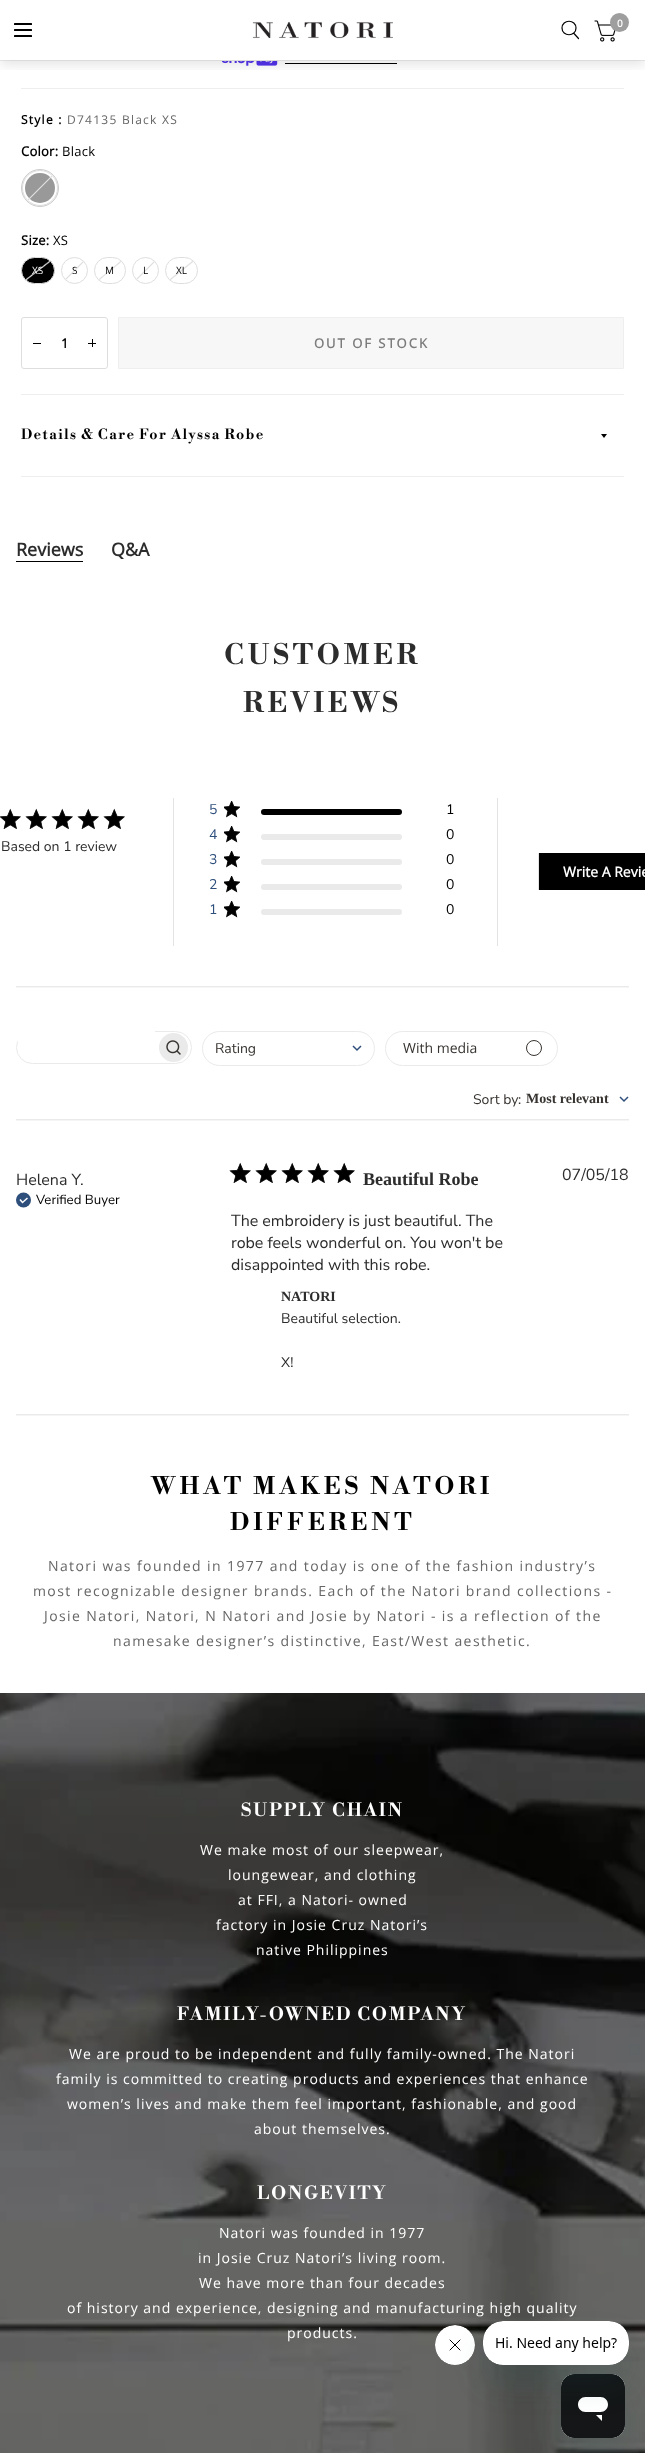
<svg xmlns="http://www.w3.org/2000/svg" width="645" height="2453">
<style>
.a{font:bold 10px Open Sans;fill:#fff}
.b{font:bold 12px Open Sans;letter-spacing:1.25px;fill:#000}
.c{font:12px Open Sans;letter-spacing:1.25px;fill:#666}
.d{font:bold 13px Open Sans;letter-spacing:0.25px;fill:#000}
.e{font:13px Open Sans;letter-spacing:0.25px;fill:#000}
.f{font:10px Open Sans;fill:#fff}
.g{font:10px Open Sans;fill:#000}
.h{font:bold 13px Open Sans;fill:#000}
.i{font:bold 13px Open Sans;letter-spacing:2px;fill:#7c7c7c}
.j{font:bold 14px Libre Bodoni;letter-spacing:1.4px;fill:#000}
.k{font:bold 18px Open Sans;fill:#2c2c2c}
.l{font:bold 28px Libre Bodoni;letter-spacing:3.75px;fill:#2c2c2c}
.m{font:200 14px Nunito Sans;fill:#2c2c2c}
.n{font:200 14px Nunito Sans;fill:#2e4f7c}
.o{font:200 14px Nunito Sans;fill:#000}
.p{font:bold 14px Open Sans;fill:#fff}
.q{font:200 14px Nunito Sans;fill:#373330}
.r{font:14px Open Sans;fill:#373330}
.s{font:bold 14px Liberation Serif;fill:#373330}
.t{font:200 16px Nunito Sans;fill:#2c2c2c}
.u{font:200 13.25px Nunito Sans;fill:#000}
.v{font:bold 18px Liberation Serif;fill:#2c2c2c}
.w{font:bold 14px Liberation Serif;fill:#2c2c2c}
.x{font:bold 24px Libre Bodoni;letter-spacing:4px;fill:#000}
.y{font:14px Open Sans;letter-spacing:1.4px;fill:#666}
.z{font:bold 18px Libre Bodoni;letter-spacing:2px;fill:#fff}
.a1{font:14px Open Sans;letter-spacing:1px;fill:#fff}
</style>
<defs>
<clipPath id="clip1"><path d="M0 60h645v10H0z"/></clipPath>
<linearGradient id="g1" gradientUnits="userSpaceOnUse" x1="28" y1="176" x2="52" y2="200"><stop offset="0.47" stop-color="#dedede" stop-opacity="0"/><stop offset="0.5" stop-color="#dedede"/><stop offset="0.53" stop-color="#dedede" stop-opacity="0"/></linearGradient>
<linearGradient id="g2" gradientUnits="userSpaceOnUse" x1="26" y1="255" x2="50" y2="286"><stop offset="0.47" stop-color="#dedede" stop-opacity="0"/><stop offset="0.5" stop-color="#dedede"/><stop offset="0.53" stop-color="#dedede" stop-opacity="0"/></linearGradient>
<linearGradient id="g3" gradientUnits="userSpaceOnUse" x1="62" y1="258" x2="87" y2="283"><stop offset="0.47" stop-color="#dedede" stop-opacity="0"/><stop offset="0.5" stop-color="#dedede"/><stop offset="0.53" stop-color="#dedede" stop-opacity="0"/></linearGradient>
<linearGradient id="g4" gradientUnits="userSpaceOnUse" x1="98" y1="256" x2="122" y2="285"><stop offset="0.47" stop-color="#dedede" stop-opacity="0"/><stop offset="0.5" stop-color="#dedede"/><stop offset="0.53" stop-color="#dedede" stop-opacity="0"/></linearGradient>
<linearGradient id="g5" gradientUnits="userSpaceOnUse" x1="133" y1="258" x2="158" y2="283"><stop offset="0.47" stop-color="#dedede" stop-opacity="0"/><stop offset="0.5" stop-color="#dedede"/><stop offset="0.53" stop-color="#dedede" stop-opacity="0"/></linearGradient>
<linearGradient id="g6" gradientUnits="userSpaceOnUse" x1="169" y1="255" x2="194" y2="286"><stop offset="0.47" stop-color="#dedede" stop-opacity="0"/><stop offset="0.5" stop-color="#dedede"/><stop offset="0.53" stop-color="#dedede" stop-opacity="0"/></linearGradient>
</defs>
<rect width="100%" height="100%" fill="#fff"/>
<path fill="#eee" d="M0 60h645v1H0z"/>
<image href="3.png" x="221" y="61" width="57" height="5"/>
<path fill="#000" d="M285 63h112v1H285z"/>
<g clip-path="url(#clip1)">
<path fill="#0000001a" filter="blur(6px)" d="M0 5h645v60H0z"/>
</g>
<rect fill="#000" x="14" y="23" width="18" height="2" rx="0.5"/>
<rect fill="#000" x="14" y="29" width="18" height="2" rx="0.5"/>
<rect fill="#000" x="14" y="35" width="18" height="2" rx="0.5"/>
<image href="1.png" x="252" y="21" width="141" height="18"/>
<path fill="none" stroke="#000" stroke-width="1.2" stroke-linecap="round" stroke-linejoin="round" d="M574 33.5l4.5 5m-2.5-10.5c0 9-14 9-14 0c0-9 14-9 14 0z"/>
<image href="2.png" x="594" y="20" width="22" height="22"/>
<circle fill="#9e9e9e" cx="619.5" cy="22.5" r="9.5"/>
<path fill="#eee" d="M21 88h603v1H21z"/>
<circle fill="none" stroke="#dedede" cx="40" cy="188" r="17.5"/>
<circle fill="none" stroke="#ccc" cx="40" cy="188" r="18.5"/>
<circle fill="#999" cx="40" cy="188" r="15"/>
<path fill="url(#g1)" d="M28 176h24v24H28z"/>
<rect fill="#000" stroke="#dedede" x="21.5" y="257.5" width="33" height="26" rx="13"/>
<rect fill="url(#g2)" x="22" y="258" width="32" height="25" rx="12.5"/>
<circle fill="none" stroke="#dedede" cx="74.5" cy="270.5" r="13"/>
<circle fill="url(#g3)" cx="74.5" cy="270.5" r="12.5"/>
<rect fill="none" stroke="#dedede" x="94.5" y="257.5" width="31" height="26" rx="13"/>
<rect fill="url(#g4)" x="95" y="258" width="30" height="25" rx="12.5"/>
<circle fill="none" stroke="#dedede" cx="145.5" cy="270.5" r="13"/>
<circle fill="url(#g5)" cx="145.5" cy="270.5" r="12.5"/>
<rect fill="none" stroke="#dedede" x="165.5" y="257.5" width="32" height="26" rx="13"/>
<rect fill="url(#g6)" x="166" y="258" width="31" height="25" rx="12.5"/>
<rect fill="none" stroke="#dedede" x="21.5" y="317.5" width="86" height="51" rx="2.5"/>
<path fill="#000" d="M33 343h8v1H33z"/>
<path fill="#000" d="M92 339h1v8H92z"/>
<path fill="#000" d="M88 343h8v1H88z"/>
<path fill="none" stroke="#eee" d="M118.5 317.5h505v51H118.5z"/>
<path fill="#f7f7f7" d="M119 318h504v50H119z"/>
<path fill="#eee" d="M21 394h603v1H21z"/>
<path fill="#eee" d="M21 476h603v1H21z"/>
<path fill="#000" d="M601 434h6l-3 4z"/>
<path fill="#000" d="M16 561h67v1H16z"/>
<image href="4.png" x="0" y="808" width="21" height="21"/>
<image href="5.png" x="25" y="808" width="22" height="21"/>
<image href="5.png" x="51" y="808" width="22" height="21"/>
<image href="5.png" x="77" y="808" width="22" height="21"/>
<image href="5.png" x="103" y="808" width="22" height="21"/>
<path fill="#e3e3e3" d="M173 798h1v148H173z"/>
<path fill="#e3e3e3" d="M497 798h1v148H497z"/>
<image href="6.png" x="224" y="801" width="16" height="17"/>
<rect fill="#000" x="261" y="809" width="141" height="6" rx="3"/>
<image href="6.png" x="224" y="826" width="16" height="17"/>
<rect fill="#eaeaea" x="261" y="834" width="141" height="6" rx="3"/>
<image href="6.png" x="224" y="851" width="16" height="17"/>
<rect fill="#eaeaea" x="261" y="859" width="141" height="6" rx="3"/>
<image href="6.png" x="224" y="876" width="16" height="17"/>
<rect fill="#eaeaea" x="261" y="884" width="141" height="6" rx="3"/>
<image href="6.png" x="224" y="901" width="16" height="17"/>
<rect fill="#eaeaea" x="261" y="909" width="141" height="6" rx="3"/>
<path fill="#000" d="M539 853h106v37H539z"/>
<path fill="#e3e3e3" d="M538 853h1v37H538z"/>
<image href="7.png" x="16" y="986" width="613" height="2"/>
<rect fill="none" stroke="#eaeaea" x="16.5" y="1031.5" width="175" height="32" rx="16"/>
<path fill="#fff" d="M34 1020h120.5c.5 0 .5 0 .5 .5v33c0 .5 0 .5-.5 .5h-120.5c-9.5 0-17-7.5-17-17c0-9.5 7.5-17 17-17z"/>
<circle fill="#eaeaea" cx="173.5" cy="1047.5" r="14.5"/>
<image href="8.png" x="166" y="1040" width="15" height="15"/>
<rect fill="none" stroke="#eaeaea" x="202.5" y="1031.5" width="172" height="34" rx="17"/>
<path fill="none" stroke="#2e4f7c" stroke-width="1.5" d="M353 1046l4 4l4-4"/>
<rect fill="none" stroke="#eaeaea" x="385.5" y="1031.5" width="172" height="34" rx="17"/>
<circle fill="none" stroke="#373330" cx="534" cy="1048" r="7.5"/>
<path fill="none" stroke="#2e4f7c" stroke-width="1.5" d="M620 1097l4 4l4-4"/>
<image href="7.png" x="16" y="1119" width="613" height="2"/>
<circle fill="#2e4f7c" cx="23.5" cy="1200" r="7.5"/>
<path fill="none" stroke="#fff" stroke-width="1.5" d="M20 1199.5l2.5 3l5-4.5"/>
<image href="9.png" x="229" y="1162" width="22" height="21"/>
<image href="9.png" x="255" y="1162" width="22" height="21"/>
<image href="9.png" x="281" y="1162" width="22" height="21"/>
<image href="9.png" x="307" y="1162" width="22" height="21"/>
<image href="9.png" x="333" y="1162" width="22" height="21"/>
<image href="7.png" x="16" y="1414" width="613" height="2"/>
<image href="10.png" x="0" y="1693" width="645" height="760"/>
<image href="12.png" x="435" y="2325" width="40" height="40"/>
<rect fill="#17494d26" filter="blur(15px)" x="561" y="2394" width="64" height="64" rx="14"/>
<image href="13.png" x="561" y="2374" width="64" height="64"/>
<rect fill="#17494d26" filter="blur(15px)" x="483" y="2341" width="146" height="44" rx="20"/>
<image href="11.png" x="483" y="2321" width="146" height="44"/>
<text class="a" x="617" y="27">0</text>
<text class="b" x="21" y="124">Style :</text>
<text class="c" x="67" y="124">D74135 Black XS</text>
<text class="d" x="21" y="156">Color:</text>
<text class="e" x="62" y="156">Black</text>
<text class="d" x="21" y="245">Size:</text>
<text class="e" x="53" y="245">XS</text>
<text class="f" x="32" y="274">XS</text>
<text class="g" x="72" y="274">S</text>
<text class="g" x="105" y="274">M</text>
<text class="g" x="143" y="274">L</text>
<text class="g" x="176" y="274">XL</text>
<text class="h" x="61" y="348">1</text>
<text class="i" x="314" y="348">OUT OF STOCK</text>
<text class="j" x="21" y="439">Details &amp; Care For Alyssa Robe</text>
<text class="k" x="16" y="556">Reviews</text>
<text class="k" x="111" y="556">Q&amp;A</text>
<text class="l" x="224" y="664">CUSTOMER</text>
<text class="l" x="243" y="712">REVIEWS</text>
<text class="m" x="1" y="851">Based on 1 review</text>
<text class="n" x="209" y="814">5</text>
<text class="o" x="446" y="814">1</text>
<text class="n" x="209" y="839">4</text>
<text class="o" x="446" y="839">0</text>
<text class="n" x="209" y="864">3</text>
<text class="o" x="446" y="864">0</text>
<text class="n" x="209" y="889">2</text>
<text class="o" x="446" y="889">0</text>
<text class="n" x="209" y="914">1</text>
<text class="o" x="446" y="914">0</text>
<text class="p" x="563" y="877">Write A Revie</text>
<text class="q" x="215" y="1053">Rating</text>
<text class="r" x="403" y="1053">With media</text>
<text class="q" x="473" y="1104">Sort by</text>
<text class="q" x="518" y="1104">:</text>
<text class="s" x="526" y="1103">Most relevant</text>
<text class="t" x="16" y="1185">Helena Y.</text>
<text class="u" x="36" y="1204">Verified Buyer</text>
<text class="v" x="363" y="1185">Beautiful Robe</text>
<text class="t" x="231" y="1226">The embroidery is just beautiful. The</text>
<text class="t" x="231" y="1248">robe feels wonderful on. You won't be</text>
<text class="t" x="231" y="1270">disappointed with this robe.</text>
<text class="w" x="281" y="1301">NATORI</text>
<text class="m" x="281" y="1323">Beautiful selection.</text>
<text class="m" x="281" y="1367">X!</text>
<text class="t" x="562" y="1180">07/05/18</text>
<text class="x" x="151" y="1494">WHAT MAKES NATORI</text>
<text class="x" x="230" y="1530">DIFFERENT</text>
<text class="y" x="48" y="1571">Natori was founded in 1977 and today is one of the fashion industry’s</text>
<text class="y" x="33" y="1596">most recognizable designer brands. Each of the Natori brand collections -</text>
<text class="y" x="44" y="1621">Josie Natori, Natori, N Natori and Josie by Natori - is a reflection of the</text>
<text class="y" x="113" y="1646">namesake designer’s distinctive, East/West aesthetic.</text>
<text class="z" x="241" y="1816">SUPPLY CHAIN</text>
<text class="a1" x="200" y="1855">We make most of our sleepwear,</text>
<text class="a1" x="228" y="1880">loungewear, and clothing</text>
<text class="a1" x="238" y="1905">at FFI, a Natori- owned</text>
<text class="a1" x="216" y="1930">factory in Josie Cruz Natori’s</text>
<text class="a1" x="256" y="1955">native Philippines</text>
<text class="z" x="177" y="2020">FAMILY-OWNED COMPANY</text>
<text class="a1" x="69" y="2059">We are proud to be independent and fully family-owned. The Natori</text>
<text class="a1" x="56" y="2084">family is committed to creating products and experiences that enhance</text>
<text class="a1" x="67" y="2109">women’s lives and make them feel important, fashionable, and good</text>
<text class="a1" x="254" y="2134">about themselves.</text>
<text class="z" x="257" y="2199">LONGEVITY</text>
<text class="a1" x="219" y="2238">Natori was founded in 1977</text>
<text class="a1" x="198" y="2263">in Josie Cruz Natori’s living room.</text>
<text class="a1" x="199" y="2288">We have more than four decades</text>
<text class="a1" x="67" y="2313">of history and experience, designing and manufacturing high quality</text>
<text class="a1" x="287" y="2338">products.</text>
</svg>
